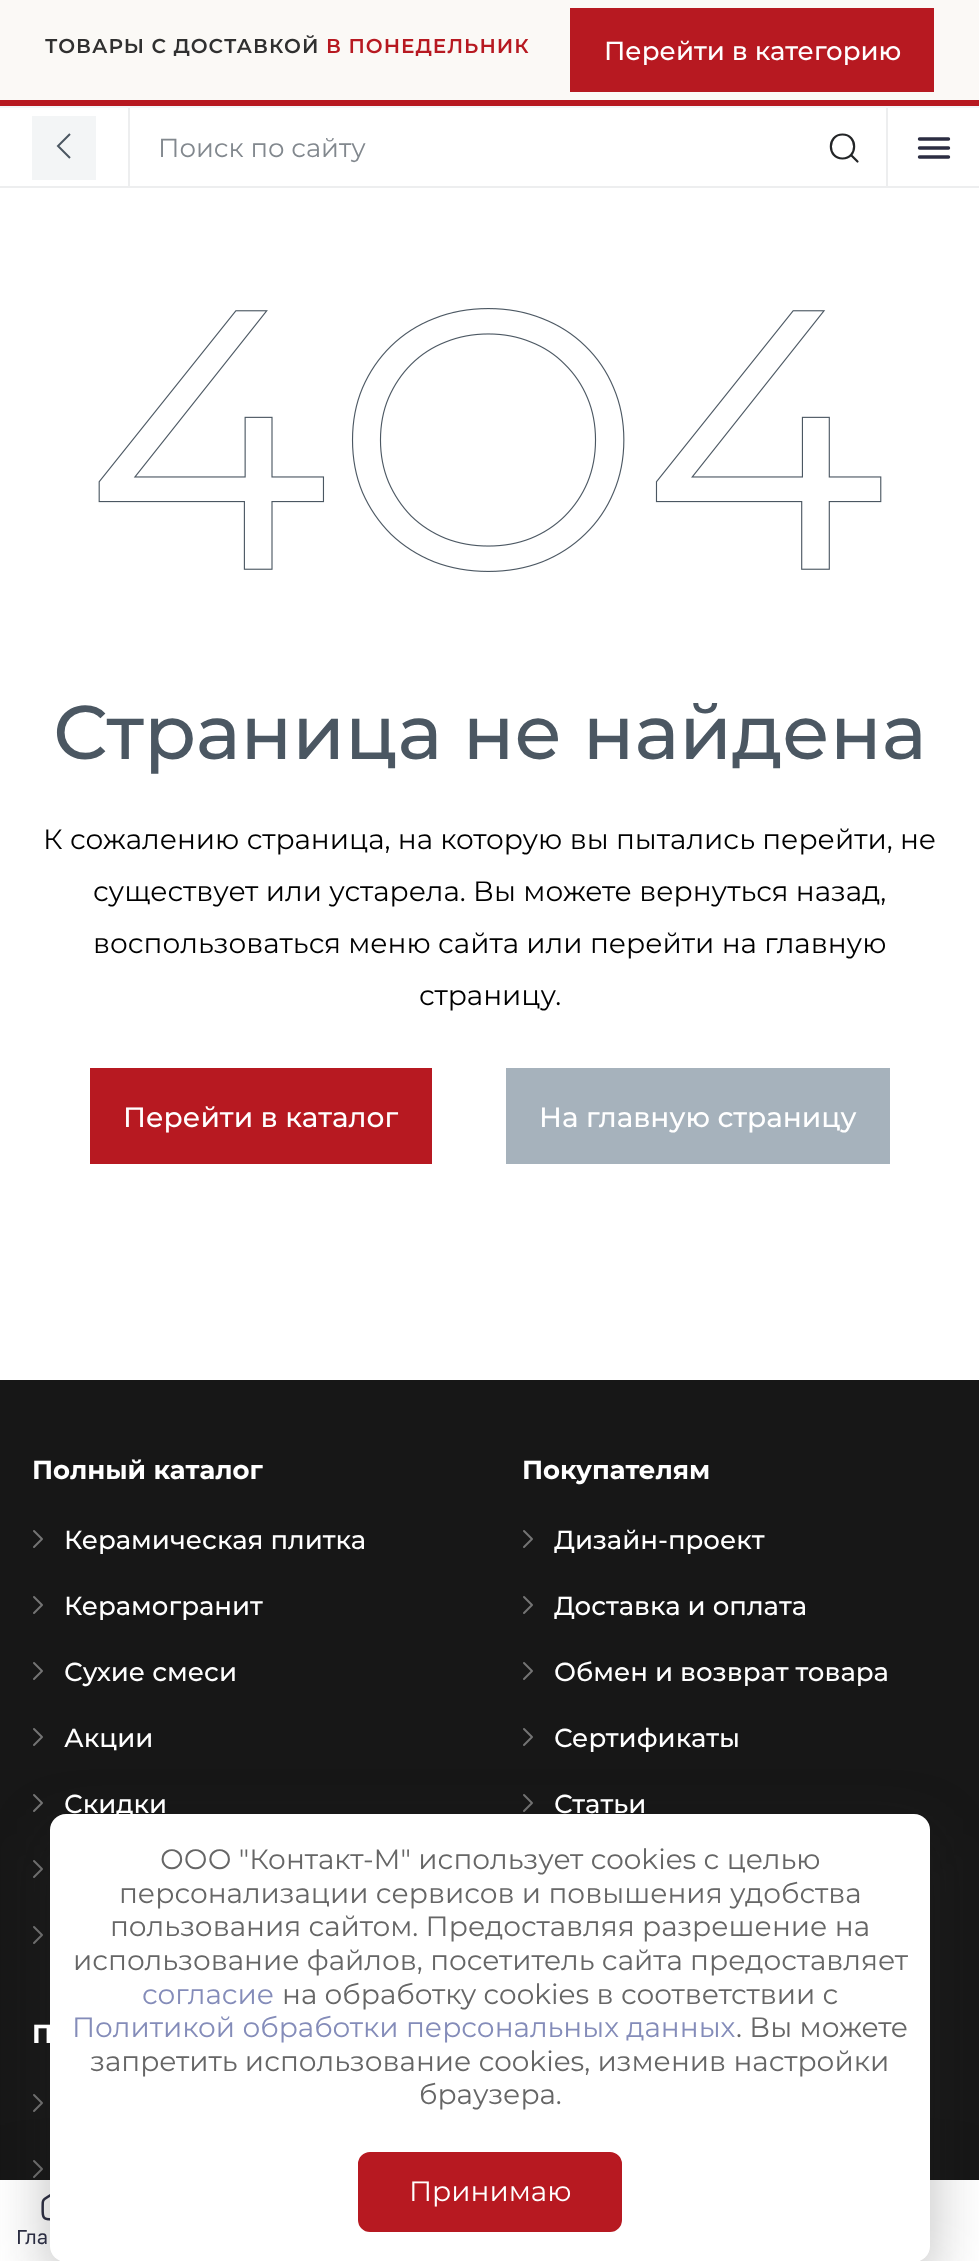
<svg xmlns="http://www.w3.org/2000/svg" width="979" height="2261">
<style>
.a{font:600 20px Montserrat;letter-spacing:1px;fill:#303030}
.b{font:600 20px Montserrat;letter-spacing:1px;fill:#b71921}
.c{font:500 26px Montserrat;fill:#fff}
.d{font:26px Montserrat;fill:#82888e}
.e{font:500 76px Montserrat;fill:#4b5762}
.f{font:28px Montserrat;fill:#000}
.g{font:500 28px Montserrat;fill:#fff}
.h{font:bold 26px Montserrat;fill:#fff}
.i{font:28px Montserrat;fill:#666}
.j{font:28px Montserrat;fill:#848cb9}
.k{font:28px Montserrat;fill:#fff}
.l{font:20px Golos Text;fill:#2b2d42}
</style>
<rect width="100%" height="100%" fill="#fff"/>
<path fill="#fbf9f6" d="M0 0h979v100H0z"/>
<path fill="#b71921" d="M0 100h979v6H0z"/>
<path fill="#b71921" d="M570 8h364v84H570z"/>
<path fill="#f3f6f9" d="M0 106h979v2H0z"/>
<path fill="#edeeef" d="M0 186h979v2H0z"/>
<path fill="#f3f5f6" d="M32 116h64v64H32z"/>
<path fill="none" stroke="#4b5762" stroke-width="2" d="M70 134l-12 12l12 12"/>
<path fill="#edeeef" d="M886 108h2v78H886z"/>
<path fill="#edeeef" d="M128 108h2v78H128z"/>
<path fill="none" stroke="#232527" stroke-width="2.2" stroke-linecap="round" stroke-linejoin="round" d="M842.5 158.5c15.5 0 15.5-24 0-24c-15.5 0-15.5 24 0 24zm15 3l-6.5-6.5"/>
<path fill="none" stroke="#2b2d42" stroke-width="3.4" stroke-linecap="round" d="M948.5 139h-29m29 9h-29m29 9h-29"/>
<image href="1.png" x="98" y="308" width="784" height="264"/>
<path fill="#b71921" d="M90 1068h342v96H90z"/>
<path fill="#a6b2bc" d="M506 1068h384v96H506z"/>
<path fill="#171717" d="M0 1380h979v800H0z"/>
<path fill="none" stroke="#747474" stroke-width="2" stroke-linecap="round" stroke-linejoin="round" d="M34 1531l8 8l-8 8"/>
<path fill="none" stroke="#747474" stroke-width="2" stroke-linecap="round" stroke-linejoin="round" d="M34 1597l8 8l-8 8"/>
<path fill="none" stroke="#747474" stroke-width="2" stroke-linecap="round" stroke-linejoin="round" d="M34 1663l8 8l-8 8"/>
<path fill="none" stroke="#747474" stroke-width="2" stroke-linecap="round" stroke-linejoin="round" d="M34 1729l8 8l-8 8"/>
<path fill="none" stroke="#747474" stroke-width="2" stroke-linecap="round" stroke-linejoin="round" d="M34 1795l8 8l-8 8"/>
<path fill="none" stroke="#747474" stroke-width="2" stroke-linecap="round" stroke-linejoin="round" d="M34 1861l8 8l-8 8"/>
<path fill="none" stroke="#747474" stroke-width="2" stroke-linecap="round" stroke-linejoin="round" d="M34 1927l8 8l-8 8"/>
<path fill="none" stroke="#747474" stroke-width="2" stroke-linecap="round" stroke-linejoin="round" d="M524 1531l8 8l-8 8"/>
<path fill="none" stroke="#747474" stroke-width="2" stroke-linecap="round" stroke-linejoin="round" d="M524 1597l8 8l-8 8"/>
<path fill="none" stroke="#747474" stroke-width="2" stroke-linecap="round" stroke-linejoin="round" d="M524 1663l8 8l-8 8"/>
<path fill="none" stroke="#747474" stroke-width="2" stroke-linecap="round" stroke-linejoin="round" d="M524 1729l8 8l-8 8"/>
<path fill="none" stroke="#747474" stroke-width="2" stroke-linecap="round" stroke-linejoin="round" d="M524 1795l8 8l-8 8"/>
<path fill="none" stroke="#747474" stroke-width="2" stroke-linecap="round" stroke-linejoin="round" d="M34 2095l8 8l-8 8"/>
<path fill="none" stroke="#747474" stroke-width="2" stroke-linecap="round" stroke-linejoin="round" d="M34 2161l8 8l-8 8"/>
<path fill="#0000000d" filter="blur(25px)" d="M0 2160h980v82H0z"/>
<path fill="#fff" d="M0 2180h979v81H0z"/>
<image href="2.png" x="41" y="2194" width="9" height="27"/>
<rect fill="#2828284d" filter="blur(30px)" x="50" y="1834" width="880" height="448" rx="16"/>
<rect fill="#fff" x="50" y="1814" width="880" height="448" rx="16"/>
<rect fill="#b71921" stroke="#b71921" stroke-width="2" x="359" y="2153" width="262" height="78" rx="11"/>
<text class="a" x="45" y="53">ТОВАРЫ С ДОСТАВКОЙ</text>
<text class="b" x="326" y="53">В ПОНЕДЕЛЬНИК</text>
<text class="c" x="604" y="60">Перейти в категорию</text>
<text class="d" x="158" y="157">Поиск по сайту</text>
<text class="e" x="53" y="759">Страница не найдена</text>
<text class="f" x="43" y="849">К сожалению страница, на которую вы пытались перейти, не</text>
<text class="f" x="93" y="901">существует или устарела. Вы можете вернуться назад,</text>
<text class="f" x="93" y="953">воспользоваться меню сайта или перейти на главную</text>
<text class="f" x="419" y="1005">страницу.</text>
<text class="g" x="123" y="1127">Перейти в каталог</text>
<text class="g" x="539" y="1127">На главную страницу</text>
<text class="h" x="32" y="1479">Полный каталог</text>
<text class="c" x="64" y="1549">Керамическая плитка</text>
<text class="c" x="64" y="1615">Керамогранит</text>
<text class="c" x="64" y="1681">Сухие смеси</text>
<text class="c" x="64" y="1747">Акции</text>
<text class="c" x="64" y="1813">Скидки</text>
<text class="h" x="522" y="1479">Покупателям</text>
<text class="c" x="554" y="1549">Дизайн-проект</text>
<text class="c" x="554" y="1615">Доставка и оплата</text>
<text class="c" x="554" y="1681">Обмен и возврат товара</text>
<text class="c" x="554" y="1747">Сертификаты</text>
<text class="c" x="554" y="1813">Статьи</text>
<text class="h" x="32" y="2043">П</text>
<text class="i" x="160" y="1869">ООО "Контакт-М" использует cookies с целью</text>
<text class="i" x="119" y="1903">персонализации сервисов и повышения удобства</text>
<text class="i" x="110" y="1936">пользования сайтом. Предоставляя разрешение на</text>
<text class="i" x="73" y="1970">использование файлов, посетитель сайта предоставляет</text>
<text class="j" x="142" y="2004">согласие</text>
<text class="i" x="282" y="2004">на обработку cookies в соответствии с</text>
<text class="j" x="72" y="2037">Политикой обработки персональных данных</text>
<text class="i" x="736" y="2037">. Вы можете</text>
<text class="i" x="90" y="2071">запретить использование cookies, изменив настройки</text>
<text class="i" x="419" y="2104">браузера.</text>
<text class="k" x="409" y="2201">Принимаю</text>
<text class="l" x="16" y="2244">Гла</text>
</svg>
